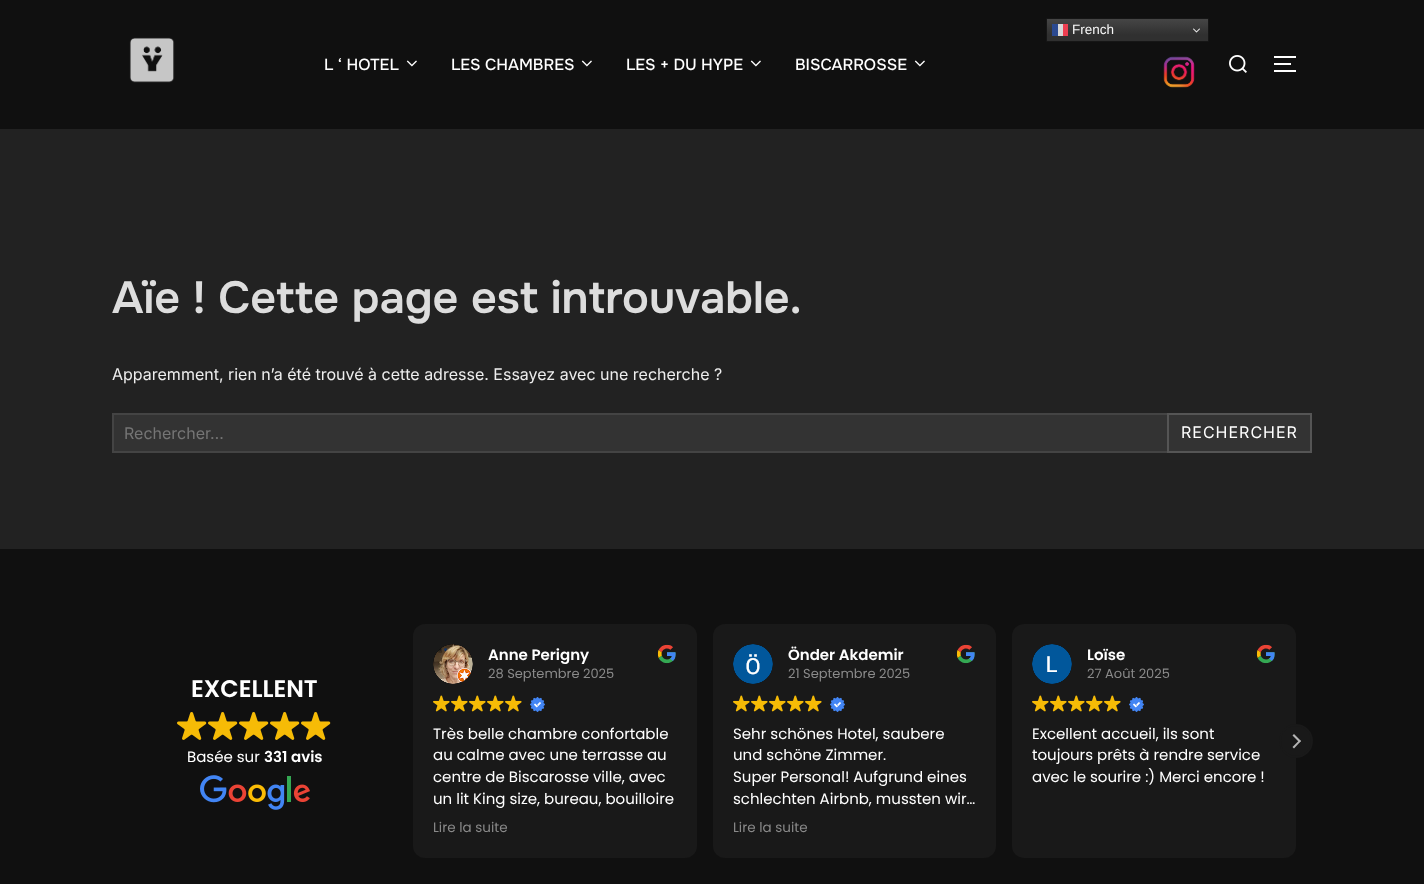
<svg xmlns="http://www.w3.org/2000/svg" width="1424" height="884">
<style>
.a{font:13.5px Liberation Sans;fill:#f7f7f7}
.b{font:500 16px Onest;fill:#fff}
.c{font:600 45px Onest;fill:#ddd}
.d{font:16px Inter;fill:#eee}
.e{font:16px Inter;fill:#757575}
.f{font:16px Inter;letter-spacing:1px;fill:#fff}
.g{font:600 24px Poppins;fill:#fff}
.h{font:15px Poppins;fill:#fff}
.i{font:600 15px Poppins;fill:#fff}
.j{font:13px Poppins;fill:#8a8a8a}
.k{font:13.5px Poppins;fill:#8a8a8a}
</style>
<defs>
<linearGradient id="g1" gradientUnits="userSpaceOnUse" x1="1128" y1="18" x2="1128" y2="42"><stop offset="0" stop-color="#474747"/><stop offset="0.7" stop-color="#303030"/></linearGradient>
<linearGradient id="g2" gradientUnits="userSpaceOnUse" x1="1128" y1="18" x2="1128" y2="42"><stop offset="0" stop-color="#dadada"/><stop offset="0.7" stop-color="#d6d6d6"/></linearGradient>
<linearGradient id="g3" gradientUnits="userSpaceOnUse" x1="1128" y1="18" x2="1128" y2="42"><stop offset="0" stop-color="#ee3f52"/><stop offset="0.7" stop-color="#ed3e51"/></linearGradient>
<linearGradient id="g4" gradientUnits="userSpaceOnUse" x1="1128" y1="18" x2="1128" y2="42"><stop offset="0" stop-color="#2c4a91"/><stop offset="0.7" stop-color="#2b4990"/></linearGradient>
</defs>
<rect width="100%" height="100%" fill="#222"/>
<path fill="#101010" d="M0 0h1424v129H0z"/>
<path fill="url(#g1)" d="M1047 19h161v22H1047z"/>
<path fill="url(#g2)" d="M1058 24h5v12H1058z"/>
<path fill="url(#g3)" d="M1063 24h5v12H1063z"/>
<path fill="url(#g4)" d="M1052 24h6v12H1052z"/>
<path fill="none" stroke="#161616" d="M1046.5 18.5h162v23H1046.5z"/>
<image href="1.png" x="1193" y="28" width="7" height="5"/>
<image href="2.png" x="1163" y="56" width="32" height="32"/>
<image href="3.png" x="1229" y="55" width="18" height="18"/>
<path fill="#fff" d="M1274 56h22v2H1274z"/>
<path fill="#fff" d="M1274 63h17v2H1274z"/>
<path fill="#fff" d="M1274 70h22v2H1274z"/>
<image href="4.png" x="129" y="37" width="46" height="46"/>
<image href="5.png" x="406" y="60" width="11" height="7"/>
<image href="5.png" x="581" y="60" width="11" height="7"/>
<image href="5.png" x="750" y="60" width="11" height="7"/>
<image href="5.png" x="914" y="60" width="11" height="7"/>
<path fill="#333" stroke="#444" stroke-width="2" d="M113 414h1198v38H113z"/>
<path fill="none" stroke="#555" stroke-width="2" d="M1168 414h143v38H1168z"/>
<path fill="#101010" d="M0 549h1424v335H0z"/>
<image href="6.png" x="177" y="712" width="30" height="28"/>
<image href="6.png" x="208" y="712" width="30" height="28"/>
<image href="6.png" x="239" y="712" width="30" height="28"/>
<image href="6.png" x="270" y="712" width="30" height="28"/>
<image href="6.png" x="301" y="712" width="30" height="28"/>
<image href="7.png" x="200" y="775" width="110" height="35"/>
<rect fill="#191919" x="413" y="624" width="284" height="234" rx="12"/>
<image href="8.png" x="433" y="644" width="40" height="40"/>
<image href="9.png" x="657" y="644" width="19" height="20"/>
<image href="10.png" x="433" y="695" width="17" height="17"/>
<image href="10.png" x="451" y="695" width="17" height="17"/>
<image href="10.png" x="469" y="695" width="17" height="17"/>
<image href="10.png" x="487" y="695" width="17" height="17"/>
<image href="10.png" x="505" y="695" width="17" height="17"/>
<image href="11.png" x="530" y="697" width="15" height="15"/>
<rect fill="#191919" x="713" y="624" width="283" height="234" rx="12"/>
<image href="12.png" x="733" y="644" width="40" height="40"/>
<image href="9.png" x="956" y="644" width="19" height="20"/>
<image href="10.png" x="733" y="695" width="17" height="17"/>
<image href="10.png" x="751" y="695" width="17" height="17"/>
<image href="10.png" x="769" y="695" width="17" height="17"/>
<image href="10.png" x="787" y="695" width="17" height="17"/>
<image href="10.png" x="805" y="695" width="17" height="17"/>
<image href="11.png" x="830" y="697" width="15" height="15"/>
<rect fill="#191919" x="1012" y="624" width="284" height="234" rx="12"/>
<image href="13.png" x="1032" y="644" width="40" height="40"/>
<image href="9.png" x="1256" y="644" width="19" height="20"/>
<image href="10.png" x="1032" y="695" width="17" height="17"/>
<image href="10.png" x="1050" y="695" width="17" height="17"/>
<image href="10.png" x="1068" y="695" width="17" height="17"/>
<image href="10.png" x="1086" y="695" width="17" height="17"/>
<image href="10.png" x="1104" y="695" width="17" height="17"/>
<image href="11.png" x="1129" y="697" width="15" height="15"/>
<circle fill="#191919" stroke="#191919" stroke-width="2" cx="1296" cy="741" r="16"/>
<path fill="#b5b5b5" d="M1299.5 742.5l-7-7l1.5-1.5l7 7z"/>
<path fill="#b5b5b5" d="M1294 748.5l-1.5-1.5l7-7l1.5 1z"/>
<text class="a" x="1072" y="34">French</text>
<text class="b" x="324" y="70">L ‘ HOTEL</text>
<text class="b" x="451" y="70">LES CHAMBRES</text>
<text class="b" x="626" y="70">LES + DU HYPE</text>
<text class="b" x="795" y="70">BISCARROSSE</text>
<text class="c" x="112" y="313">Aïe ! Cette page est introuvable.</text>
<text class="d" x="112" y="380">Apparemment, rien n’a été trouvé à cette adresse. Essayez avec une recherche ?</text>
<text class="e" x="124" y="439">Rechercher…</text>
<text class="f" x="1181" y="438">RECHERCHER</text>
<text class="g" x="191" y="697">EXCELLENT</text>
<text class="h" x="187" y="762">Basée sur</text>
<text class="i" x="264" y="762">331 avis</text>
<text class="i" x="488" y="660">Anne Perigny</text>
<text class="j" x="488" y="678">28 Septembre 2025</text>
<text class="h" x="433" y="739">Très belle chambre confortable</text>
<text class="h" x="433" y="760">au calme avec une terrasse au</text>
<text class="h" x="433" y="782">centre de Biscarosse ville, avec</text>
<text class="h" x="433" y="804">un lit King size, bureau, bouilloire</text>
<text class="k" x="433" y="832">Lire la suite</text>
<text class="i" x="788" y="660">Önder Akdemir</text>
<text class="j" x="788" y="678">21 Septembre 2025</text>
<text class="h" x="733" y="739">Sehr schönes Hotel, saubere</text>
<text class="h" x="733" y="760">und schöne Zimmer.</text>
<text class="h" x="733" y="782">Super Personal! Aufgrund eines</text>
<text class="h" x="733" y="804">schlechten Airbnb, mussten wir…</text>
<text class="k" x="733" y="832">Lire la suite</text>
<text class="i" x="1087" y="660">Loïse</text>
<text class="j" x="1087" y="678">27 Août 2025</text>
<text class="h" x="1032" y="739">Excellent accueil, ils sont</text>
<text class="h" x="1032" y="760">toujours prêts à rendre service</text>
<text class="h" x="1032" y="782">avec le sourire :) Merci encore !</text>
</svg>
